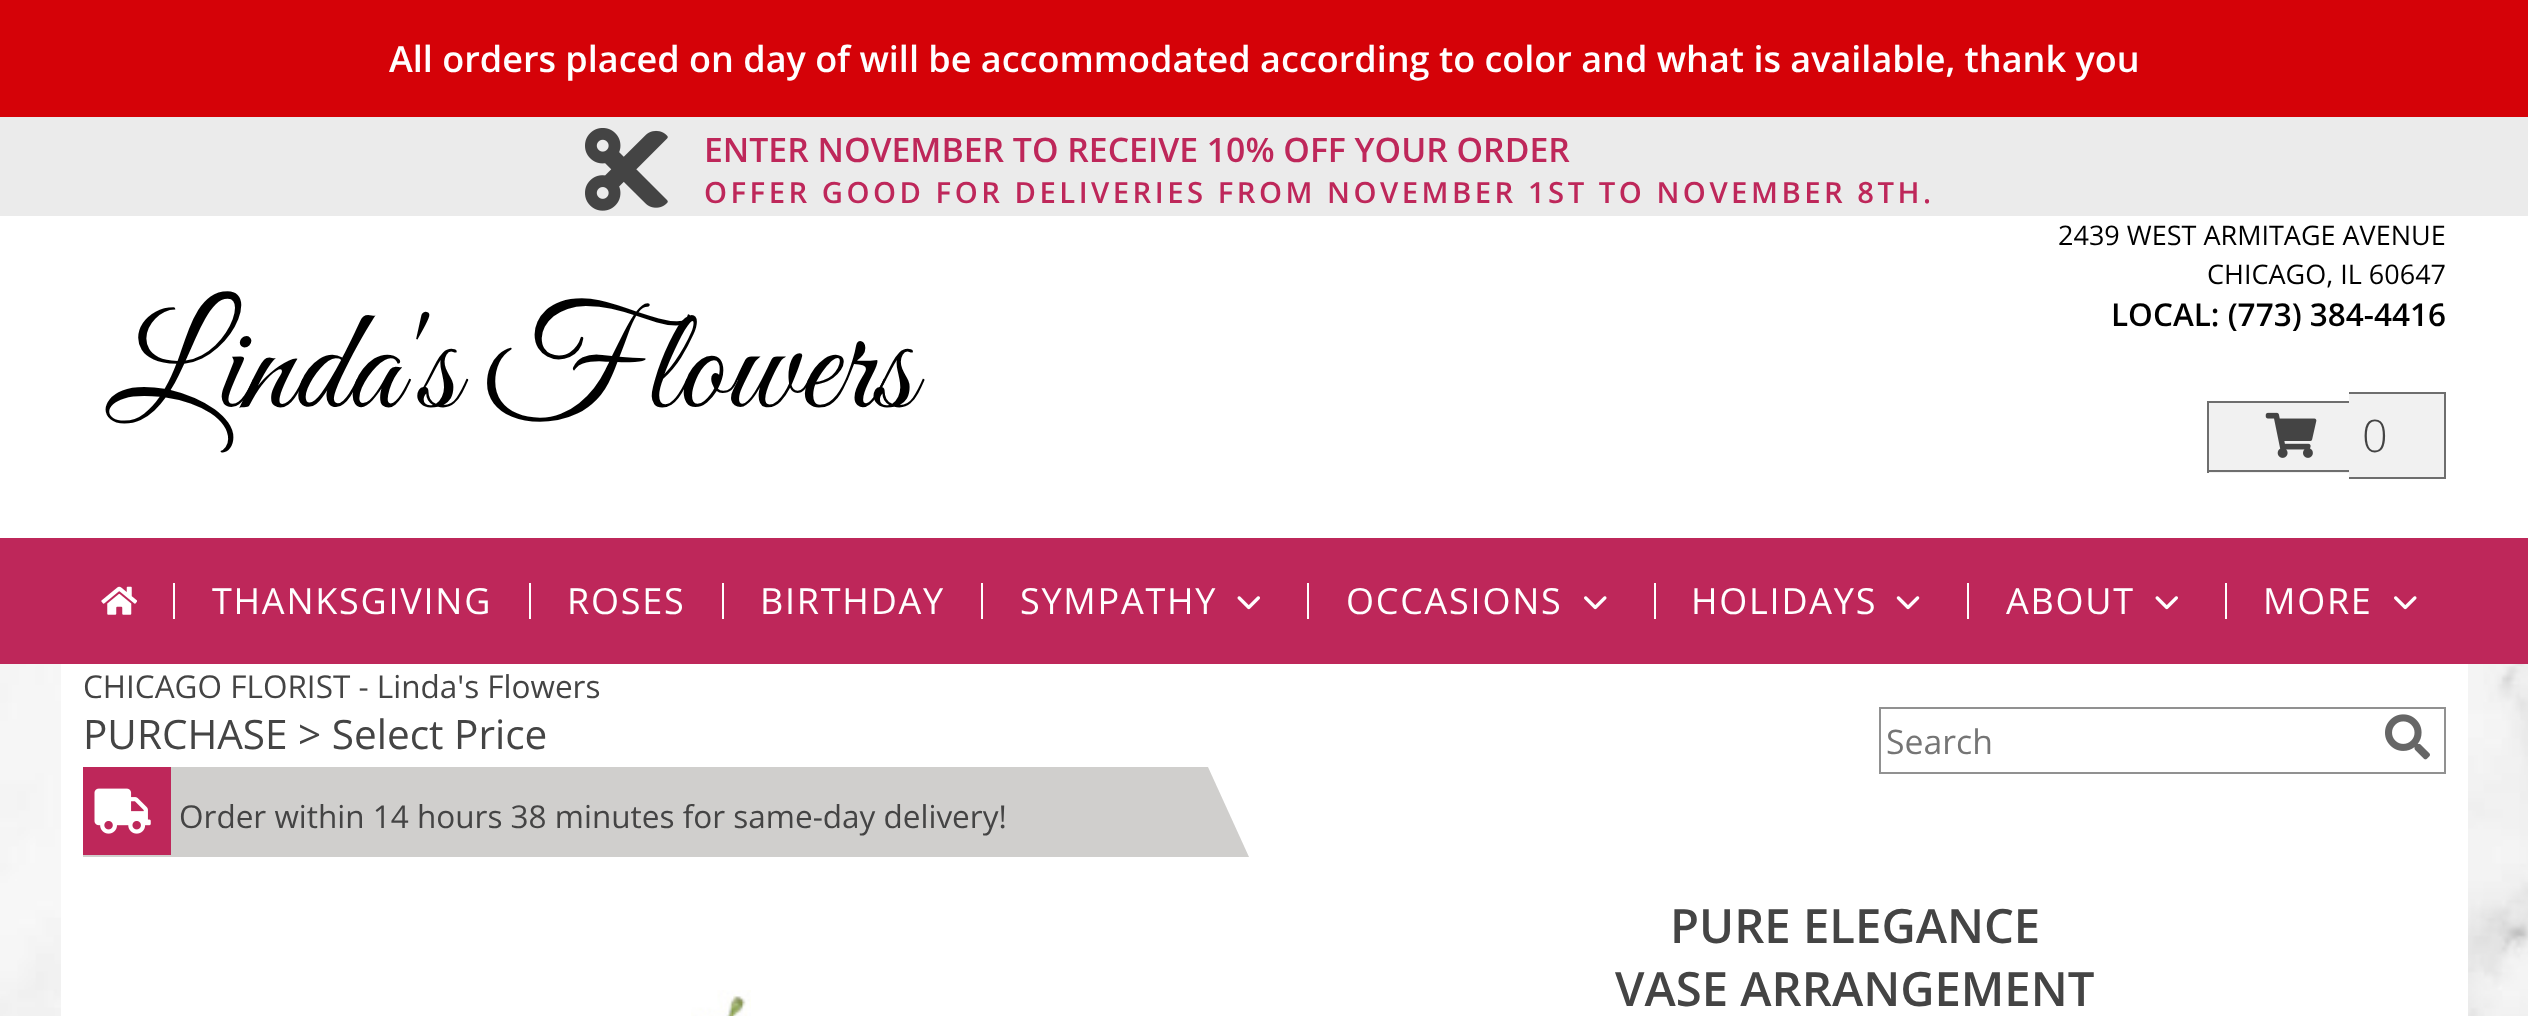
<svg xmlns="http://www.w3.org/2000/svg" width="2528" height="1016">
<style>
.a{font:600 36px Open Sans;fill:#fff}
.b{font:600 33.75px Open Sans;fill:#be275a}
.c{font:600 29.25px Open Sans;letter-spacing:3.5px;fill:#be275a}
.d{font:146.25px Great Vibes;fill:#000}
.e{font:27px Open Sans;fill:#000}
.f{font:600 31.5px Open Sans;fill:#000}
.g{font:300 45px Open Sans;fill:#444}
.h{font:36px Open Sans;letter-spacing:1.75px;fill:#fff}
.i{font:31.5px Open Sans;fill:#444}
.j{font:40.5px Open Sans;fill:#444}
.k{font:33.75px Open Sans;fill:#757575}
.l{font:600 47.25px Open Sans;fill:#444}
</style>
<rect width="100%" height="100%" fill="#fff"/>
<image href="1.png" x="0" y="664" width="2528" height="352"/>
<path fill="#fff" d="M61 664h2407v352H61z"/>
<path fill="#d50208" d="M0 0h2528v117H0z"/>
<path fill="#ebebeb" d="M0 117h2528v99H0z"/>
<image href="2.png" x="585" y="128" width="83" height="83"/>
<path fill="#f1f1f1" d="M2209 403h140v70H2209z"/>
<path fill="#6e6e6e" d="M2207 401h142v2H2207z"/>
<path fill="#6e6e6e" d="M2207 470h142v2H2207z"/>
<path fill="#6e6e6e" d="M2207 401h2v72H2207z"/>
<path fill="#f1f1f1" d="M2349 394h95v83H2349z"/>
<path fill="#6e6e6e" d="M2349 392h97v2H2349z"/>
<path fill="#6e6e6e" d="M2349 477h14v2H2349z"/>
<path fill="#6e6e6e" d="M2444 392h2v87H2444z"/>
<path fill="#6e6e6e" d="M2363 477h83v2H2363z"/>
<image href="3.png" x="2265" y="412" width="52" height="46"/>
<path fill="#be275a" d="M0 538h2528v126H0z"/>
<image href="4.png" x="101" y="586" width="36" height="29"/>
<path fill="#fff" d="M173 583h2v36H173z"/>
<path fill="#fff" d="M529 583h2v36H529z"/>
<path fill="#fff" d="M722 583h2v36H722z"/>
<path fill="#fff" d="M981 583h2v36H981z"/>
<image href="5.png" x="1237" y="596" width="23" height="14"/>
<path fill="#fff" d="M1307 583h2v36H1307z"/>
<image href="6.png" x="1584" y="596" width="23" height="14"/>
<path fill="#fff" d="M1654 583h2v36H1654z"/>
<image href="7.png" x="1896" y="596" width="24" height="14"/>
<path fill="#fff" d="M1967 583h2v36H1967z"/>
<image href="5.png" x="2155" y="596" width="23" height="14"/>
<path fill="#fff" d="M2225 583h2v36H2225z"/>
<image href="6.png" x="2394" y="596" width="23" height="14"/>
<path fill="none" stroke="#919191" stroke-width="2" d="M1880 708h565v65H1880z"/>
<image href="8.png" x="2385" y="714" width="45" height="46"/>
<path fill="#d0cfcd" d="M1249 857h-1166v-90h1125z"/>
<path fill="#be275a" d="M83 767h88v88H83z"/>
<image href="9.png" x="94" y="788" width="57" height="46"/>
<image href="10.png" x="691" y="990" width="60" height="26"/>
<text class="a" x="389" y="72">All orders placed on day of will be accommodated according to color and what is available, thank you</text>
<text class="b" x="704" y="162">ENTER NOVEMBER TO RECEIVE 10% OFF YOUR ORDER</text>
<text class="c" x="704" y="203">OFFER GOOD FOR DELIVERIES FROM NOVEMBER 1ST TO NOVEMBER 8TH.</text>
<text class="d" x="106" y="407">Linda's Flowers</text>
<text class="e" x="2058" y="245">2439 WEST ARMITAGE AVENUE</text>
<text class="e" x="2207" y="284">CHICAGO, IL 60647</text>
<text class="f" x="2111" y="326">LOCAL: (773) 384-4416</text>
<text class="g" x="2362" y="452">0</text>
<text class="h" x="212" y="614">THANKSGIVING</text>
<text class="h" x="567" y="614">ROSES</text>
<text class="h" x="760" y="614">BIRTHDAY</text>
<text class="h" x="1020" y="614">SYMPATHY</text>
<text class="h" x="1346" y="614">OCCASIONS</text>
<text class="h" x="1691" y="614">HOLIDAYS</text>
<text class="h" x="2006" y="614">ABOUT</text>
<text class="h" x="2263" y="614">MORE</text>
<text class="i" x="83" y="698">CHICAGO FLORIST - Linda's Flowers</text>
<text class="j" x="83" y="749">PURCHASE &gt; Select Price</text>
<text class="k" x="1886" y="754">Search</text>
<text class="i" x="179" y="828">Order within 14 hours 38 minutes for same-day delivery!</text>
<text class="l" x="1670" y="943">PURE ELEGANCE</text>
<text class="l" x="1615" y="1006">VASE ARRANGEMENT</text>
</svg>
